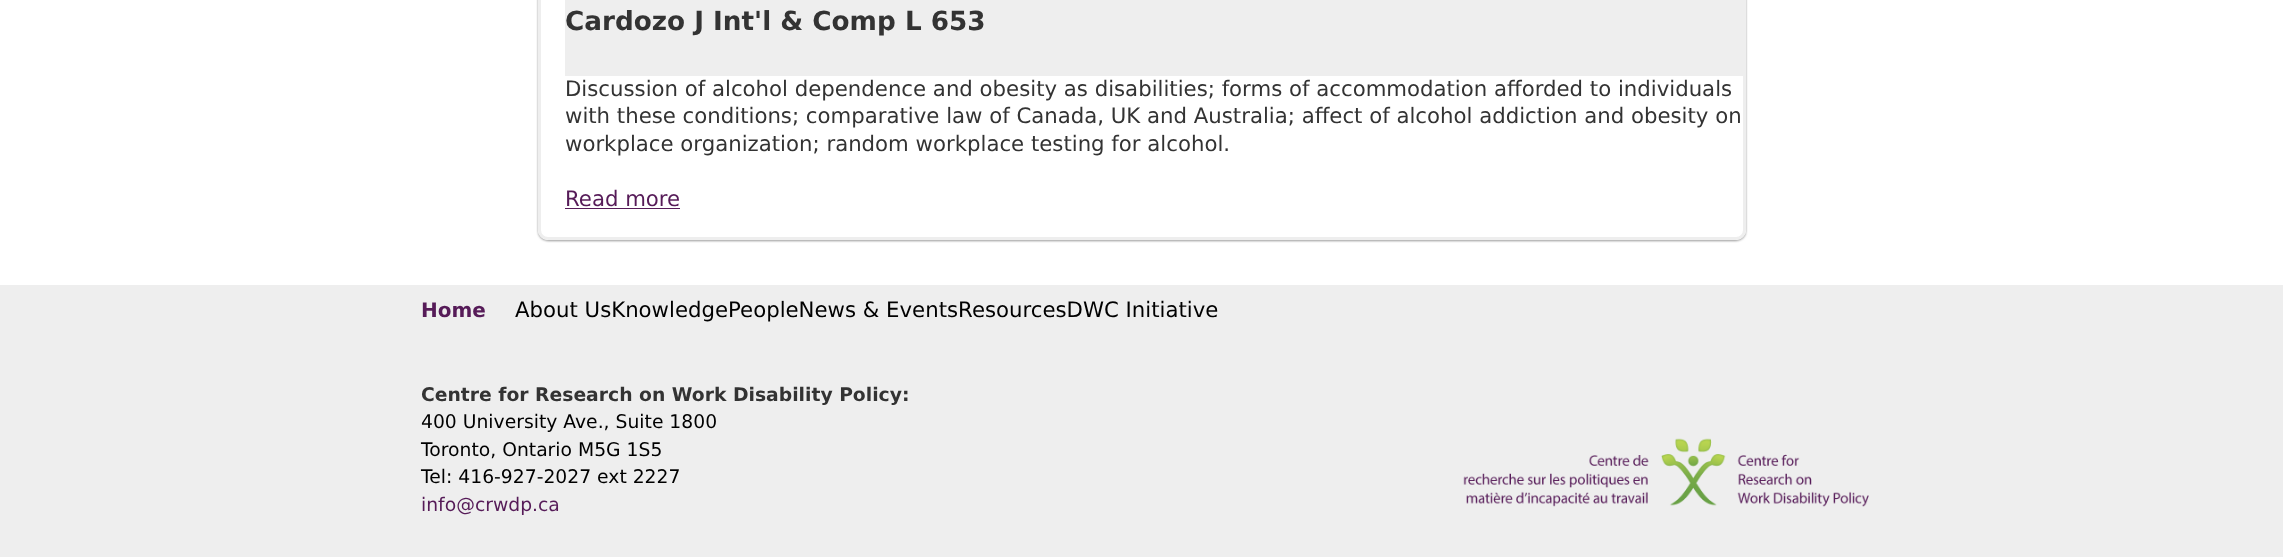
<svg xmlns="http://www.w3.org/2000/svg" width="2283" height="557">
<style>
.a{font:bold 26.25px DejaVu Sans;fill:#333}
.b{font:21.25px DejaVu Sans;fill:#333}
.c{font:21.25px DejaVu Sans;fill:#561b58}
.d{font:bold 20px DejaVu Sans;fill:#561b58}
.e{font:21.25px DejaVu Sans;fill:#000}
.f{font:bold 18.75px DejaVu Sans;fill:#333}
.g{font:18.75px DejaVu Sans;fill:#000}
.h{font:18.75px DejaVu Sans;fill:#561b58}
</style>
<defs>
<clipPath id="clip1"><path d="M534 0h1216v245h-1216zm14-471h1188c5.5 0 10 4.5 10 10v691c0 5.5-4.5 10-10 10h-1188c-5.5 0-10-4.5-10-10v-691c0-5.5 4.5-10 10-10z" clip-rule="evenodd"/></clipPath>
</defs>
<rect width="100%" height="100%" fill="#fff"/>
<g clip-path="url(#clip1)">
<rect fill="#999" filter="blur(1px)" x="538" y="-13" width="1208" height="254" rx="10"/>
</g>
<rect fill="none" stroke="#eee" stroke-width="3" x="539.5" y="-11.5" width="1205" height="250" rx="8.5"/>
<path fill="#eee" d="M565 0h1178v73H565z"/>
<path fill="#eee" d="M565 73h1179v3H565z"/>
<path fill="#561b58" d="M565 208h115v1H565z"/>
<path fill="#eee" d="M0 285h2283v272H0z"/>
<image href="1.png" x="1463" y="438" width="406" height="69"/>
<text class="a" x="565" y="30">Cardozo J Int'l &amp; Comp L 653</text>
<text class="b" x="565" y="96">Discussion of alcohol dependence and obesity as disabilities; forms of accommodation afforded to individuals</text>
<text class="b" x="565" y="123">with these conditions; comparative law of Canada, UK and Australia; affect of alcohol addiction and obesity on</text>
<text class="b" x="565" y="151">workplace organization; random workplace testing for alcohol.</text>
<text class="c" x="565" y="206">Read more</text>
<text class="d" x="421" y="317">Home</text>
<text class="e" x="515" y="317">About UsKnowledgePeopleNews &amp; EventsResourcesDWC Initiative</text>
<text class="f" x="421" y="401">Centre for Research on Work Disability Policy:</text>
<text class="g" x="421" y="428">400 University Ave., Suite 1800</text>
<text class="g" x="421" y="456">Toronto, Ontario M5G 1S5</text>
<text class="g" x="421" y="483">Tel: 416-927-2027 ext 2227</text>
<text class="h" x="421" y="511">info@crwdp.ca</text>
</svg>
